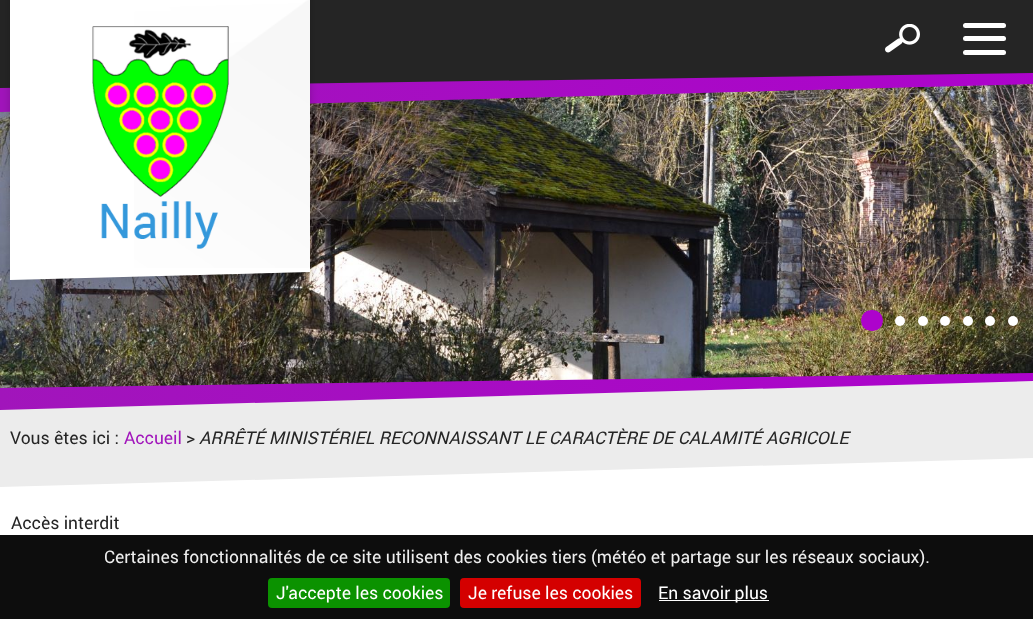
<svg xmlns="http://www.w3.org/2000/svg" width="1033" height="619">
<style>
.a{font:17.5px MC;fill:#252525}
.b{font:17.5px MC;fill:#a115bb}
.c{font:italic 17.5px MC;fill:#252525}
.d{font:17.5px MC;fill:#eee}
.e{font:17.5px MC;fill:#fff}
</style>
<defs>
<linearGradient id="g1" gradientUnits="userSpaceOnUse" x1="0" y1="-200" x2="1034" y2="-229"><stop offset="0" stop-color="#a115bb"/><stop offset="1" stop-color="#ad03cc"/></linearGradient>
<linearGradient id="g2" gradientUnits="userSpaceOnUse" x1="0" y1="453" x2="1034" y2="439"><stop offset="0" stop-color="#a115bb"/><stop offset="1" stop-color="#ad03cc"/></linearGradient>
</defs>
<rect width="100%" height="100%" fill="#fff"/>
<image href="4.png" x="0" y="84" width="1033" height="304"/>
<path fill="url(#g1)" d="M0-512l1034-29v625l-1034 28z"/>
<path fill="#252525" d="M0-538l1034-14v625l-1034 15z"/>
<path fill="#00000033" filter="blur(5px)" d="M10 -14h300v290H10z"/>
<path fill="#fff" d="M10-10l300-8v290l-300 8z"/>
<image href="1.png" x="134" y="0" width="176" height="268"/>
<image href="2.png" x="92" y="26" width="137" height="223"/>
<rect fill="#fff" x="963" y="23" width="43" height="5" rx="2.5"/>
<rect fill="#fff" x="963" y="36" width="43" height="5" rx="2.5"/>
<rect fill="#fff" x="963" y="50" width="43" height="5" rx="2.5"/>
<image href="3.png" x="885" y="24" width="35" height="29"/>
<rect fill="#ad03cc" x="861" y="310" width="22" height="21" rx="10.5"/>
<circle fill="#fff" cx="900" cy="321" r="5"/>
<circle fill="#fff" cx="923" cy="321" r="5"/>
<circle fill="#fff" cx="945" cy="321" r="5"/>
<circle fill="#fff" cx="968" cy="321" r="5"/>
<circle fill="#fff" cx="990" cy="321" r="5"/>
<circle fill="#fff" cx="1013" cy="321" r="5"/>
<path fill="url(#g2)" d="M0 388l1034-15v131l-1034 15z"/>
<path fill="#ececec" d="M0 410l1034-29v130l-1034 29z"/>
<path fill="#fff" d="M0 487l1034-29v131l-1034 29z"/>
<path fill="#0d0d0d" d="M0 535h1033v84H0z"/>
<rect fill="#0b9200" x="268" y="578" width="182" height="30" rx="4"/>
<rect fill="#d40000" x="460" y="578" width="181" height="30" rx="4"/>
<path fill="#fff" d="M659 600h110v1H659z"/>
<text class="a" x="10" y="444">Vous êtes ici :</text>
<text class="b" x="124" y="444">Accueil</text>
<text class="a" x="186" y="444">&gt;</text>
<text class="c" x="199" y="444">ARRÊTÉ MINISTÉRIEL RECONNAISSANT LE CARACTÈRE DE CALAMITÉ AGRICOLE</text>
<text class="a" x="11" y="529">Accès interdit</text>
<text class="d" x="104" y="563">Certaines fonctionnalités de ce site utilisent des cookies tiers (météo et partage sur les réseaux sociaux).</text>
<text class="e" x="276" y="599">J'accepte les cookies</text>
<text class="e" x="468" y="599">Je refuse les cookies</text>
<text class="e" x="658" y="599">En savoir plus</text>
</svg>
